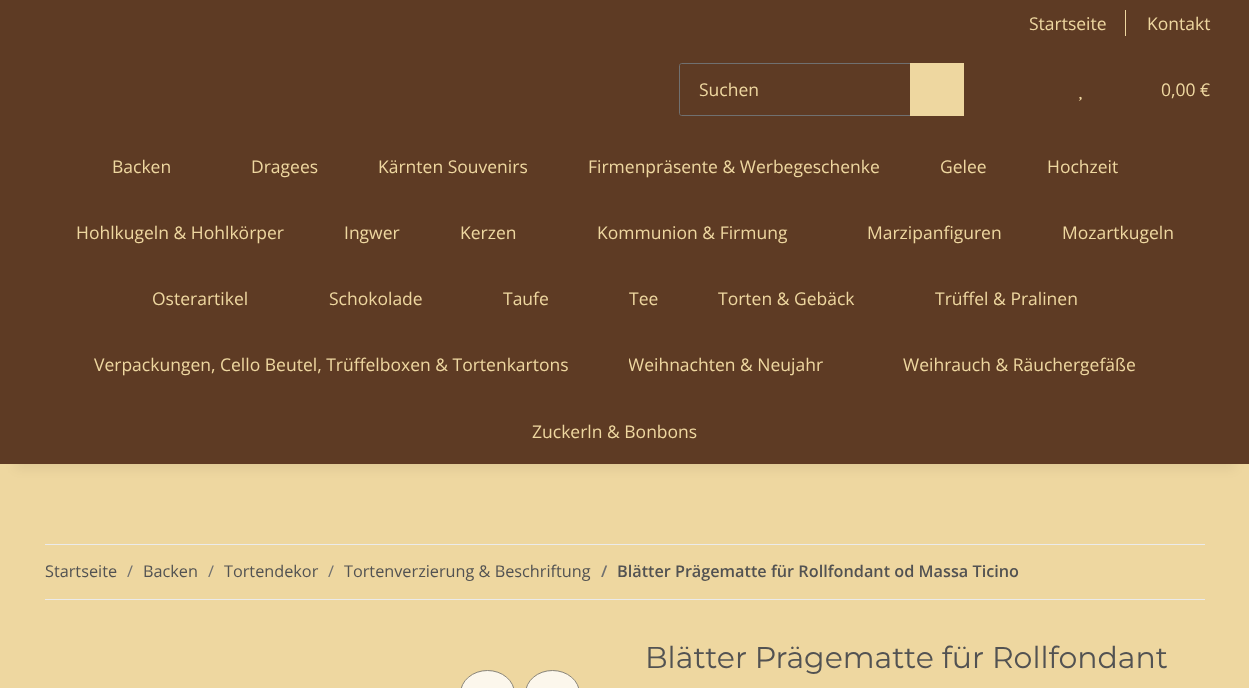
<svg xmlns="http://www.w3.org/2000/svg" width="1249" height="688">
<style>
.a{font:17.5px Open Sans;fill:#eed7a0}
.b{font:16.25px Open Sans;fill:#525252}
.c{font:16.25px Open Sans;fill:#707070}
.d{font:600 16.25px Open Sans;fill:#707070}
.e{font:600 16.25px Open Sans;fill:#525252}
.f{font:30px Montserrat;fill:#525252}
</style>
<defs>
<clipPath id="clip1"><path d="M629 351h195v27H629z"/></clipPath>
</defs>
<rect width="100%" height="100%" fill="#eed7a0"/>
<path fill="#0000000f" filter="blur(5.5px)" d="M15 35h1220v434H15z"/>
<path fill="#5e3b24" d="M0 0h1249v464H0z"/>
<path fill="#eed7a0" d="M1125 10h1v26H1125z"/>
<path fill="none" stroke="#707070" d="M681.5 63.5h229v52h-229c-1 0-2-1-2-2v-48c0-1 1-2 2-2z"/>
<path fill="#eed7a0" d="M910 63h54v53H910z"/>
<image href="1.png" x="1078" y="96" width="4" height="5"/>
<path fill="#ebebeb" d="M45 544h1160v1H45z"/>
<path fill="#ebebeb" d="M45 599h1160v1H45z"/>
<rect fill="#fcf7ec" stroke="#89857a" x="460.5" y="670.5" width="54" height="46" rx="27"/>
<rect fill="#fcf7ec" stroke="#89857a" x="525.5" y="670.5" width="54" height="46" rx="27"/>
<text class="a" x="1029" y="30">Startseite</text>
<text class="a" x="1147" y="30">Kontakt</text>
<text class="a" x="699" y="96">Suchen</text>
<text class="a" x="1161" y="96">0,00 €</text>
<text class="a" x="112" y="173">Backen</text>
<text class="a" x="251" y="173">Dragees</text>
<text class="a" x="378" y="173">Kärnten Souvenirs</text>
<text class="a" x="588" y="173">Firmenpräsente &amp; Werbegeschenke</text>
<text class="a" x="940" y="173">Gelee</text>
<text class="a" x="1047" y="173">Hochzeit</text>
<text class="a" x="76" y="239">Hohlkugeln &amp; Hohlkörper</text>
<text class="a" x="344" y="239">Ingwer</text>
<text class="a" x="460" y="239">Kerzen</text>
<text class="a" x="597" y="239">Kommunion &amp; Firmung</text>
<text class="a" x="867" y="239">Marzipanfiguren</text>
<text class="a" x="1062" y="239">Mozartkugeln</text>
<text class="a" x="152" y="305">Osterartikel</text>
<text class="a" x="329" y="305">Schokolade</text>
<text class="a" x="503" y="305">Taufe</text>
<text class="a" x="629" y="305">Tee</text>
<text class="a" x="718" y="305">Torten &amp; Gebäck</text>
<text class="a" x="935" y="305">Trüffel &amp; Pralinen</text>
<text class="a" x="94" y="371">Verpackungen, Cello Beutel, Trüffelboxen &amp; Tortenkartons</text>
<g clip-path="url(#clip1)">
<text class="a" x="628" y="371">Weihnachten &amp; Neujahr</text>
</g>
<text class="a" x="903" y="371">Weihrauch &amp; Räuchergefäße</text>
<text class="a" x="532" y="438">Zuckerln &amp; Bonbons</text>
<text class="b" x="45" y="577">Startseite</text>
<text class="c" x="127" y="577">/</text>
<text class="b" x="143" y="577">Backen</text>
<text class="c" x="208" y="577">/</text>
<text class="b" x="224" y="577">Tortendekor</text>
<text class="c" x="328" y="577">/</text>
<text class="b" x="344" y="577">Tortenverzierung &amp; Beschriftung</text>
<text class="d" x="601" y="577">/</text>
<text class="e" x="617" y="577">Blätter Prägematte für Rollfondant od Massa Ticino</text>
<text class="f" x="645" y="668">Blätter Prägematte für Rollfondant</text>
</svg>
